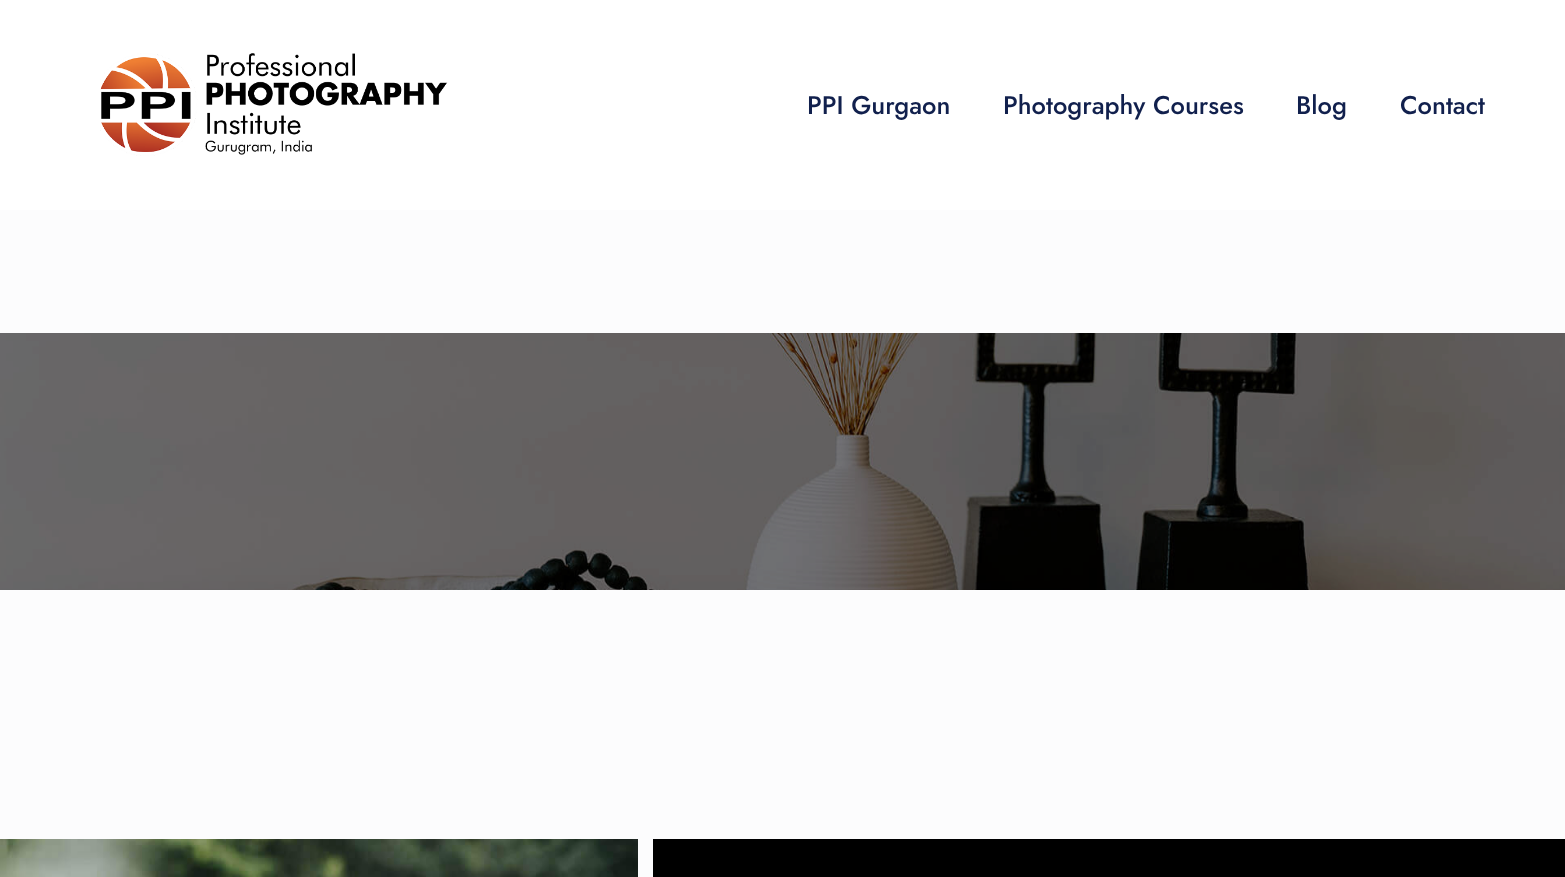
<svg xmlns="http://www.w3.org/2000/svg" width="1565" height="877">
<style>
.a{font:500 25.5px Jost;fill:#11204d}
</style>
<rect width="100%" height="100%" fill="#fcfcfd"/>
<path fill="#fff" d="M0 0h1565v210H0z"/>
<image href="1.png" x="100" y="53" width="348" height="103"/>
<image href="2.png" x="0" y="333" width="1565" height="257"/>
<path fill="#000" d="M653 839h912v38H653z"/>
<image href="3.png" x="0" y="839" width="638" height="38"/>
<text class="a" x="807" y="114">PPI Gurgaon</text>
<text class="a" x="1003" y="114">Photography Courses</text>
<text class="a" x="1296" y="114">Blog</text>
<text class="a" x="1400" y="114">Contact</text>
</svg>
